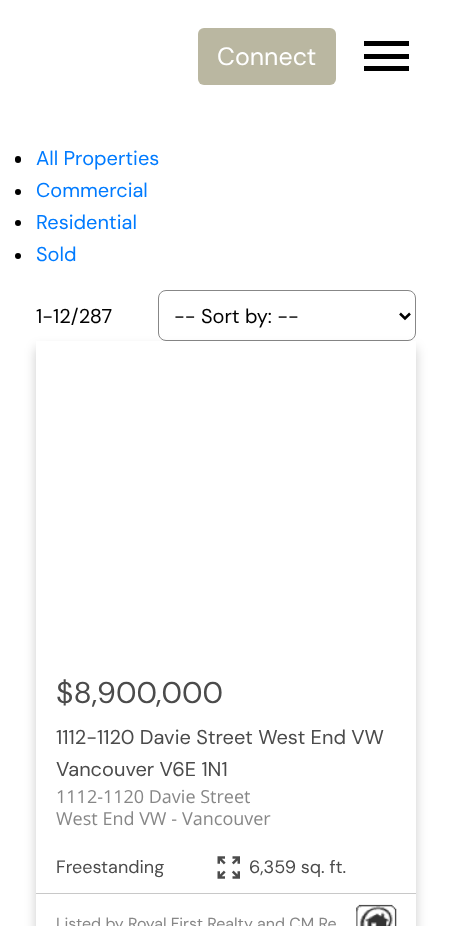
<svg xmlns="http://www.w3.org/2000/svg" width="452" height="926">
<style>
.a{font:25px DM Sans;fill:#fff}
.b{font:20px DM Sans;fill:#007bff}
.c{font:20px DM Sans;fill:#000}
.d{font:30px DM Sans;fill:#4b4b4b}
.e{font:20px DM Sans;fill:#4b4b4b}
.f{font:18px Open Sans;fill:#878787}
.g{font:18px DM Sans;fill:#4b4b4b}
.h{font:16px DM Sans;fill:#878787}
</style>
<defs>
<clipPath id="clip1"><path d="M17 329h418v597h-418zm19 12h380v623h-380z" clip-rule="evenodd"/></clipPath>
</defs>
<rect width="100%" height="100%" fill="#fff"/>
<rect fill="#bab7a1" x="198" y="28" width="138" height="57" rx="6"/>
<path fill="#000" d="M364 71h45v-5h-45zm0-12h45v-5h-45zm0-18v5h45v-5z"/>
<rect fill="#000" x="15" y="156" width="6" height="7" rx="3"/>
<circle fill="#000" cx="18" cy="192" r="3"/>
<circle fill="#000" cx="18" cy="223" r="3"/>
<circle fill="#000" cx="18" cy="256" r="3"/>
<rect fill="none" stroke="#878787" x="158.5" y="290.5" width="257" height="50" rx="7.5"/>
<path fill="none" stroke="#000" stroke-width="2.5" d="M400 313.5l5 5l5-5"/>
<g clip-path="url(#clip1)">
<path fill="#00000033" filter="blur(6px)" d="M36 348h380v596H36z"/>
</g>
<image href="1.png" x="217" y="856" width="23" height="23"/>
<path fill="#c8c8c8" d="M36 893h380v1H36z"/>
<image href="2.png" x="356" y="904" width="41" height="22"/>
<text class="a" x="217" y="65">Connect</text>
<text class="b" x="36" y="165">All Properties</text>
<text class="b" x="36" y="197">Commercial</text>
<text class="b" x="36" y="229">Residential</text>
<text class="b" x="36" y="261">Sold</text>
<text class="c" x="36" y="323">1-12/287</text>
<text class="c" x="174" y="323">-- Sort by: --</text>
<text class="d" x="56" y="703">$8,900,000</text>
<text class="e" x="56" y="744">1112-1120 Davie Street West End VW</text>
<text class="e" x="56" y="776">Vancouver V6E 1N1</text>
<text class="f" x="56" y="803">1112-1120 Davie Street</text>
<text class="f" x="56" y="825">West End VW -</text>
<text class="f" x="182" y="825">Vancouver</text>
<text class="g" x="56" y="873">Freestanding</text>
<text class="g" x="249" y="873">6,359 sq. ft.</text>
<text class="h" x="56" y="929">Listed by Royal First Realty and CM Re</text>
</svg>
